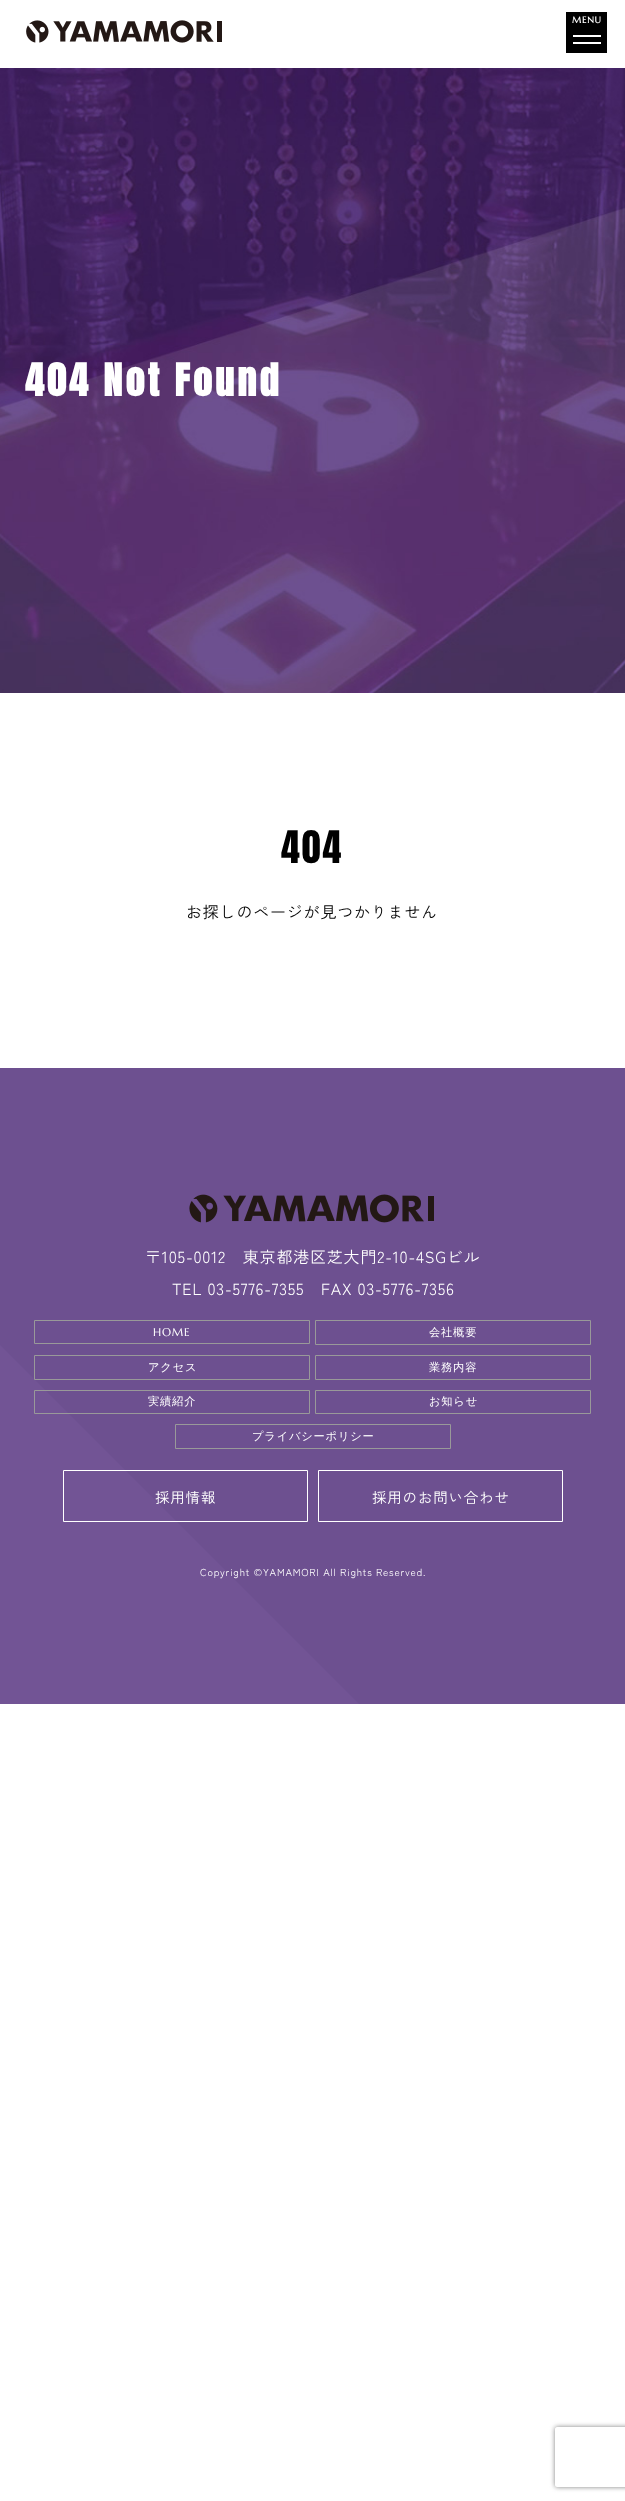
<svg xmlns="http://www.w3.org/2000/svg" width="625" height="2501">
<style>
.a{font:bold 9px Marcellus;letter-spacing:0.8px;fill:#fff}
.b{font:bold 38px Anton;letter-spacing:3.25px;fill:#fff}
.c{font:38px Anton;letter-spacing:2px;fill:#000}
.d{font:16px Zen Kaku Gothic New;letter-spacing:0.8px;fill:#060606}
.e{font:16px Zen Kaku Gothic New;letter-spacing:0.8px;fill:#fff}
.f{font:11.25px Marcellus;letter-spacing:0.8px;fill:#fff}
.g{font:500 11.25px WenQuanYi Zen Hei;letter-spacing:0.8px;fill:#fff}
.h{font:14.5px Zen Kaku Gothic New;letter-spacing:0.8px;fill:#fff}
.i{font:10px Zen Kaku Gothic New;letter-spacing:0.8px;fill:#fff}
</style>
<defs>
<clipPath id="clip1"><path d="M0 1068h625v636H0z"/></clipPath>
<clipPath id="clip2"><path d="M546 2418h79v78h-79zm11 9h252c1 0 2 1 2 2v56c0 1-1 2-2 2h-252c-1 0-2-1-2-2v-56c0-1 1-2 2-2z" clip-rule="evenodd"/></clipPath>
</defs>
<rect width="100%" height="100%" fill="#fff"/>
<rect fill="#000" stroke="#fff" stroke-width="2" x="565" y="11" width="43" height="43" rx="1"/>
<path fill="#fff" d="M573 35h28v2H573z"/>
<path fill="#fff" d="M573 42h28v2H573z"/>
<image href="1.png" x="26" y="20" width="196" height="23"/>
<image href="2.png" x="0" y="68" width="625" height="625"/>
<path fill="#6d5090" d="M0 1068h625v636H0z"/>
<image href="3.png" x="189" y="1194" width="245" height="29"/>
<path fill="none" stroke="#999" d="M34.5 1320.5h275v23H34.5z"/>
<path fill="none" stroke="#999" d="M315.5 1320.5h275v24H315.5z"/>
<g clip-path="url(#clip1)">
<path fill="#725495" d="M-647 1582l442-442l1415 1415l-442 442z"/>
</g>
<path fill="none" stroke="#999" d="M34.5 1355.5h275v24H34.5z"/>
<path fill="none" stroke="#999" d="M315.5 1355.5h275v24H315.5z"/>
<path fill="none" stroke="#999" d="M34.5 1390.5h275v23H34.5z"/>
<path fill="none" stroke="#999" d="M315.5 1390.5h275v23H315.5z"/>
<path fill="none" stroke="#999" d="M175.5 1424.5h275v24H175.5z"/>
<path fill="none" stroke="#fff" d="M63.5 1470.5h244v51H63.5z"/>
<path fill="none" stroke="#fff" d="M318.5 1470.5h244v51H318.5z"/>
<g clip-path="url(#clip2)">
<rect fill="#808080" filter="blur(2.5px)" x="555" y="2427" width="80" height="60" rx="2"/>
</g>
<text class="a" x="572" y="23">MENU</text>
<text class="b" x="25" y="396">404 Not Found</text>
<text class="c" x="281" y="863">404</text>
<text class="d" x="186" y="918">お探しのページが見つかりません</text>
<text class="e" x="145" y="1263">〒105-0012　東京都港区芝大門2-10-4SGビル</text>
<text class="e" x="172" y="1295">TEL 03-5776-7355　FAX 03-5776-7356</text>
<text class="f" x="153" y="1336">HOME</text>
<text class="g" x="429" y="1336">会社概要</text>
<text class="g" x="148" y="1371">アクセス</text>
<text class="g" x="429" y="1371">業務内容</text>
<text class="g" x="148" y="1405">実績紹介</text>
<text class="g" x="429" y="1405">お知らせ</text>
<text class="g" x="252" y="1440">プライバシーポリシー</text>
<text class="h" x="155" y="1503">採用情報</text>
<text class="h" x="372" y="1503">採用のお問い合わせ</text>
<text class="i" x="200" y="1576">Copyright ©YAMAMORI All Rights Reserved.</text>
</svg>
